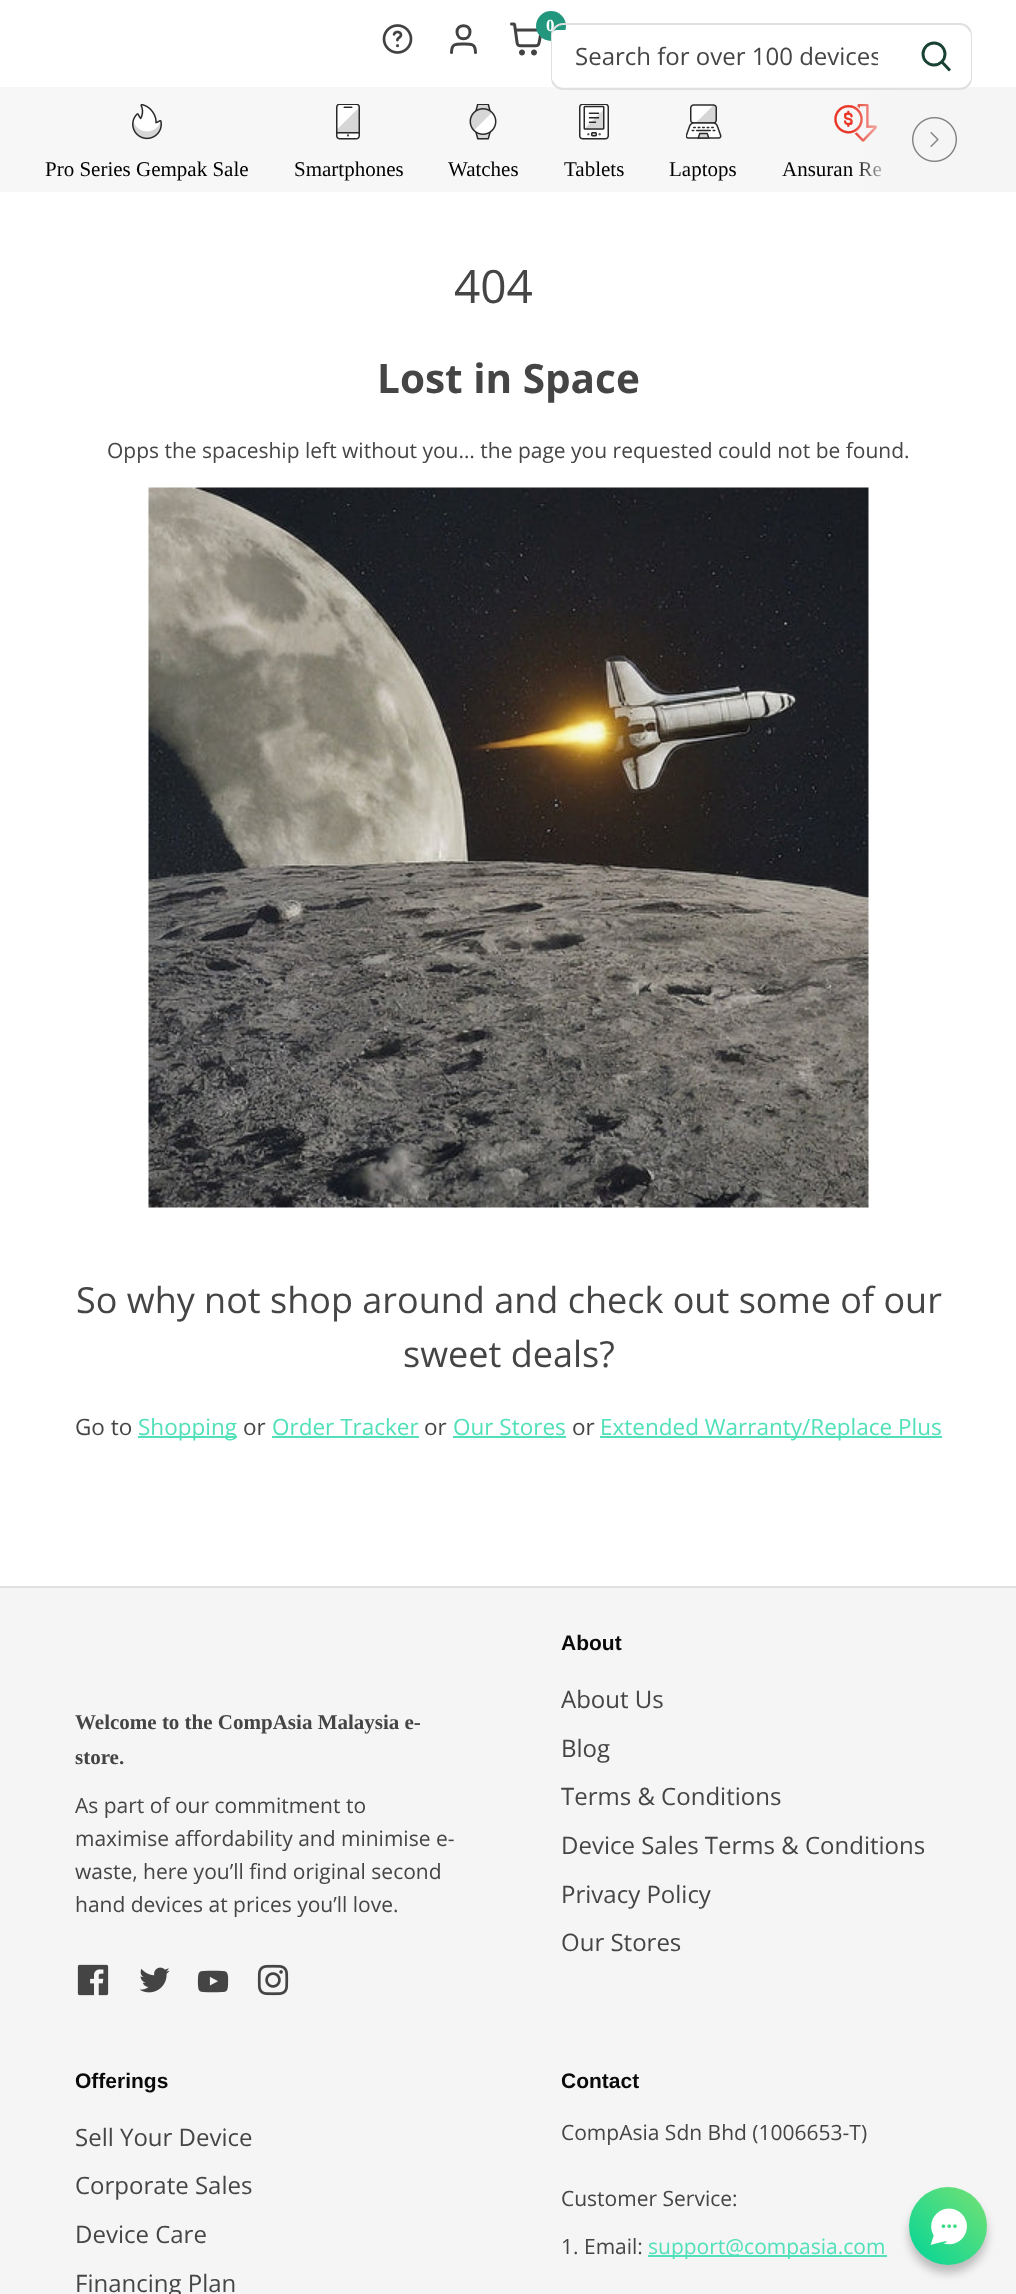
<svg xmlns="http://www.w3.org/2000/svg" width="1016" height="2294">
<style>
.a{font:bold 17px Liberation Serif;fill:#fff}
.b{font:21px Liberation Serif;fill:#000}
.c{font:24px Open Sans;fill:#454545}
.d{font:46px Open Sans;fill:#454545}
.e{font:bold 40.5px Open Sans;fill:#454545}
.f{font:21px Open Sans;fill:#454545}
.g{font:36px Open Sans;fill:#454545}
.h{font:22.5px Open Sans;fill:#454545}
.i{font:22.5px Open Sans;fill:#51e0b9}
.j{font:bold 21px Liberation Serif;fill:#454545}
.k{font:bold 21px Liberation Sans;fill:#0a0a0a}
.l{font:21px Open Sans;fill:#51e0b9}
</style>
<defs>
<linearGradient id="g1" gradientUnits="userSpaceOnUse" x1="909" y1="2265" x2="987" y2="2187"><stop offset="0" stop-color="#00d598"/><stop offset="1" stop-color="#77e173"/></linearGradient>
<linearGradient id="g2" gradientUnits="userSpaceOnUse" x1="852" y1="140" x2="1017" y2="140"><stop offset="0" stop-color="#f5f5f5" stop-opacity="0"/><stop offset="0.25" stop-color="#f5f5f5"/></linearGradient>
<clipPath id="clip1"><path d="M575 39h303v33H575z"/></clipPath>
</defs>
<rect width="100%" height="100%" fill="#fff"/>
<image href="1.png" x="382" y="24" width="31" height="30"/>
<path fill="none" stroke="#424242" stroke-width="3" stroke-linecap="round" stroke-linejoin="round" d="M475.5 52.5c0-9-4.5-8.5-12-8.5c-7.5 0-12-.5-12 8.5m18.5-20.5c0 9-13 9-13 0c0-8.5 13-8.5 13 0z"/>
<image href="2.png" x="510" y="22" width="32" height="34"/>
<circle fill="#23977e" cx="551" cy="26" r="15"/>
<path fill="#f7f7f7" d="M0 87h893v105H0z"/>
<image href="3.png" x="132" y="104" width="30" height="36"/>
<image href="4.png" x="336" y="104" width="24" height="36"/>
<image href="5.png" x="469" y="104" width="28" height="36"/>
<image href="6.png" x="579" y="104" width="30" height="36"/>
<image href="7.png" x="686" y="104" width="36" height="35"/>
<image href="8.png" x="834" y="104" width="44" height="38"/>
<image href="10.png" x="148" y="487" width="721" height="721"/>
<path fill="#51e0b9" d="M138 1436h99v2H138z"/>
<path fill="#51e0b9" d="M272 1436h147v2H272z"/>
<path fill="#51e0b9" d="M453 1436h113v2H453z"/>
<path fill="#51e0b9" d="M600 1436h342v2H600z"/>
<path fill="#f5f5f5" d="M0 1588h1016v706H0z"/>
<path fill="#e0e0e0" d="M0 1586h1016v2H0z"/>
<image href="11.png" x="77" y="1964" width="32" height="32"/>
<image href="12.png" x="139" y="1967" width="31" height="26"/>
<image href="13.png" x="197" y="1970" width="32" height="23"/>
<image href="14.png" x="257" y="1964" width="32" height="32"/>
<path fill="#51e0b9" d="M648 2255h239v2H648z"/>
<rect fill="#0000003d" filter="blur(5px)" x="909" y="2195" width="78" height="78" rx="39"/>
<circle fill="url(#g1)" cx="948" cy="2226" r="39"/>
<image href="15.png" x="930" y="2208" width="37" height="37"/>
<text class="a" x="546" y="31">0</text>
<text class="b" x="45" y="176">Pro Series Gempak Sale</text>
<text class="b" x="294" y="176">Smartphones</text>
<text class="b" x="448" y="176">Watches</text>
<text class="b" x="564" y="176">Tablets</text>
<text class="b" x="669" y="176">Laptops</text>
<text class="b" x="782" y="176">Ansuran Re</text>
<path fill="url(#g2)" d="M853 87h163v105H853z"/>
<rect fill="none" stroke="#e0e0e0" stroke-width="2" x="552" y="24" width="419" height="65" rx="11"/>
<rect fill="#fff" x="552" y="30" width="419" height="53" rx="5"/>
<path fill="none" stroke="#184232" stroke-width="2.9" stroke-linecap="square" d="M949 69.5l-7-7.5"/>
<circle fill="none" stroke="#184232" stroke-width="2.9" cx="934" cy="54" r="11"/>
<g clip-path="url(#clip1)">
<text class="c" x="575" y="65">Search for over 100 devices</text>
</g>
<image href="9.png" x="912" y="117" width="45" height="45"/>
<text class="d" x="454" y="303">404</text>
<text class="e" x="377" y="393">Lost in Space</text>
<text class="f" x="107" y="458">Opps the spaceship left without you… the page you requested could not be found.</text>
<text class="g" x="76" y="1313">So why not shop around and check out some of our</text>
<text class="g" x="403" y="1367">sweet deals?</text>
<text class="h" x="75" y="1435">Go to</text>
<text class="i" x="138" y="1435">Shopping</text>
<text class="h" x="243" y="1435">or</text>
<text class="i" x="272" y="1435">Order Tracker</text>
<text class="h" x="424" y="1435">or</text>
<text class="i" x="453" y="1435">Our Stores</text>
<text class="h" x="572" y="1435">or</text>
<text class="i" x="600" y="1435">Extended Warranty/Replace Plus</text>
<text class="j" x="75" y="1729">Welcome to the CompAsia Malaysia e-</text>
<text class="j" x="75" y="1764">store.</text>
<text class="f" x="75" y="1813">As part of our commitment to</text>
<text class="f" x="75" y="1846">maximise affordability and minimise e-</text>
<text class="f" x="75" y="1879">waste, here you’ll find original second</text>
<text class="f" x="75" y="1912">hand devices at prices you’ll love.</text>
<text class="k" x="561" y="1650">About</text>
<text class="c" x="561" y="1708">About Us</text>
<text class="c" x="561" y="1757">Blog</text>
<text class="c" x="561" y="1805">Terms &amp; Conditions</text>
<text class="c" x="561" y="1854">Device Sales Terms &amp; Conditions</text>
<text class="c" x="561" y="1903">Privacy Policy</text>
<text class="c" x="561" y="1951">Our Stores</text>
<text class="k" x="75" y="2088">Offerings</text>
<text class="c" x="75" y="2146">Sell Your Device</text>
<text class="c" x="75" y="2194">Corporate Sales</text>
<text class="c" x="75" y="2243">Device Care</text>
<text class="c" x="75" y="2292">Financing Plan</text>
<text class="k" x="561" y="2088">Contact</text>
<text class="f" x="561" y="2140">CompAsia Sdn Bhd (1006653-T)</text>
<text class="f" x="561" y="2206">Customer Service:</text>
<text class="f" x="561" y="2254">1. Email:</text>
<text class="l" x="648" y="2254">support@compasia.com</text>
</svg>
